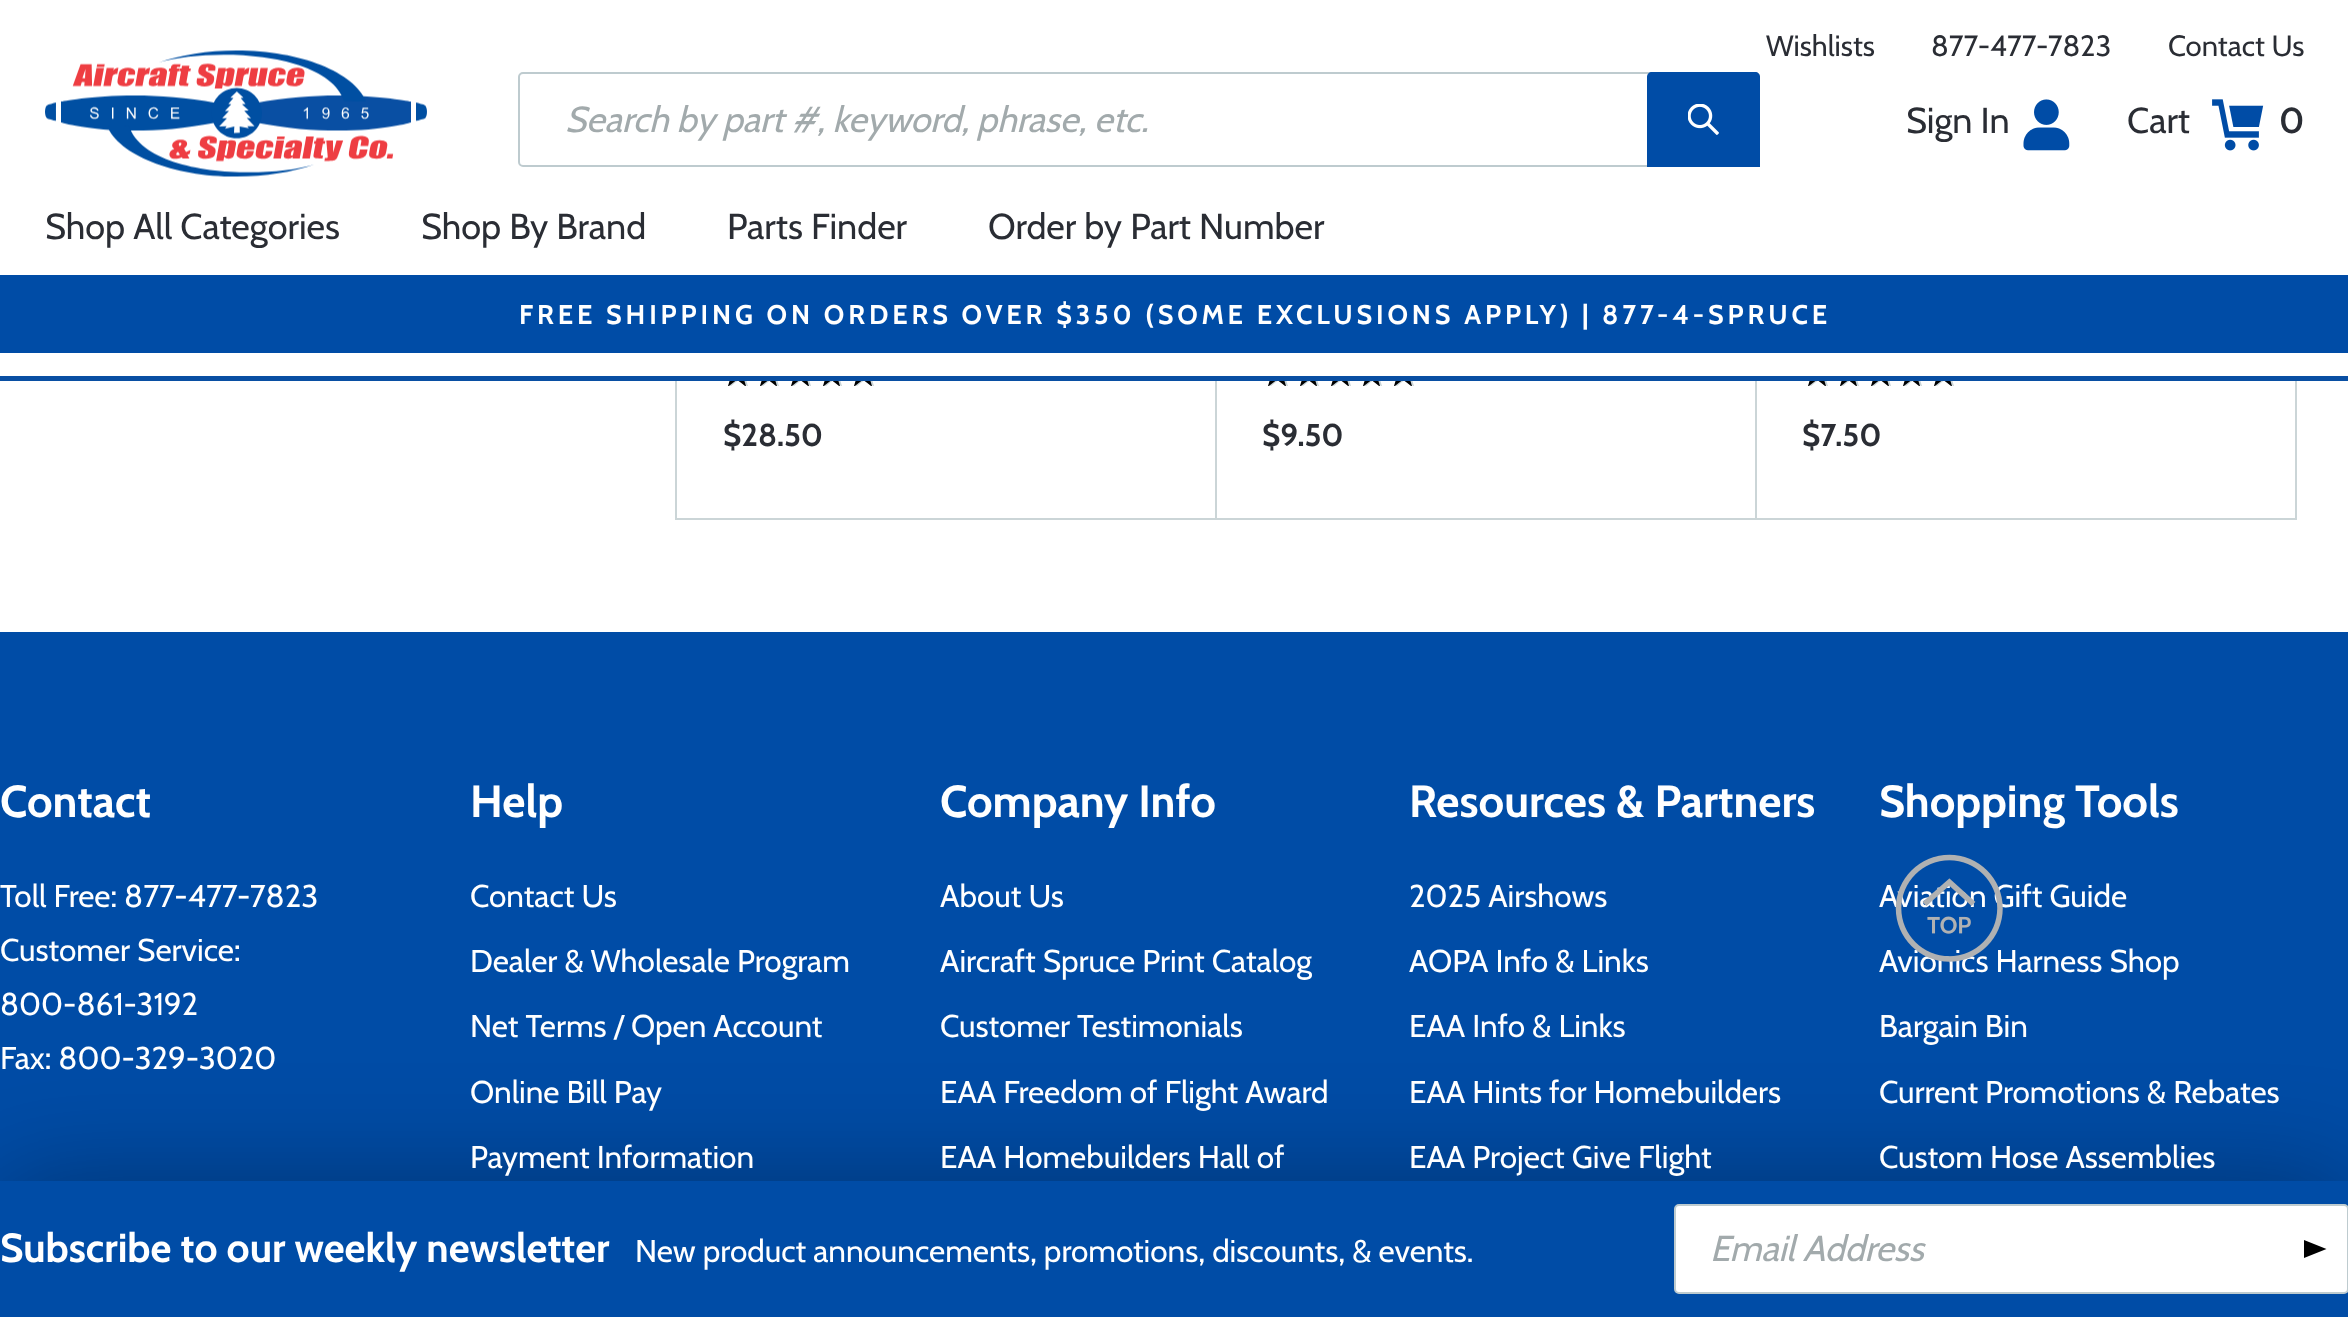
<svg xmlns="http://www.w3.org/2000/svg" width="2348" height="1317">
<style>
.a{font:29.25px Cabin;fill:#2a2d34}
.b{font:italic 36px Cabin;fill:#a2aaac}
.c{font:36px Cabin;fill:#2a2d34}
.d{font:600 36px Cabin;fill:#2a2d34}
.e{font:bold 27px Cabin;letter-spacing:3.85px;fill:#fff}
.f{font:bold 31.5px Cabin;fill:#2a2d34}
.g{font:bold 45px Cabin;fill:#fff}
.h{font:31.5px Cabin;fill:#fff}
.i{font:bold 40.5px Cabin;fill:#fff}
</style>
<rect width="100%" height="100%" fill="#fff"/>
<path fill="none" stroke="#cbd5d7" stroke-width="2" d="M676 -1h540v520H676z"/>
<path fill="none" stroke="#cbd5d7" stroke-width="2" d="M1216 -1h540v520H1216z"/>
<path fill="none" stroke="#cbd5d7" stroke-width="2" d="M1756 -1h540v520H1756z"/>
<path fill="#fff" d="M675 0h1622v376H675z"/>
<path fill="#094fa3" d="M0 376h2348v5H0z"/>
<image href="1.png" x="45" y="50" width="382" height="127"/>
<rect fill="none" stroke="#becbcf" stroke-width="2" x="519" y="73" width="1240" height="93" rx="4"/>
<path fill="#004ca6" d="M1652 72h103c3 0 5 2 5 5v90h-113v-90c0-3 2-5 5-5z"/>
<image href="2.png" x="1688" y="104" width="31" height="31"/>
<image href="3.png" x="2023" y="99" width="47" height="52"/>
<image href="4.png" x="2212" y="99" width="52" height="52"/>
<path fill="#004ca6" d="M0 275h2348v78H0z"/>
<image href="5.png" x="730" y="381" width="144" height="5"/>
<image href="6.png" x="728" y="381" width="144" height="5"/>
<image href="5.png" x="1270" y="381" width="144" height="5"/>
<image href="6.png" x="1268" y="381" width="144" height="5"/>
<image href="5.png" x="1810" y="381" width="144" height="5"/>
<image href="6.png" x="1808" y="381" width="144" height="5"/>
<path fill="#004ca6" d="M0 632h2348v549H0z"/>
<path fill="#00000057" filter="blur(56px)" d="M0 1186h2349v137H0z"/>
<path fill="#004ca6" d="M0 1181h2348v136H0z"/>
<rect fill="#fff" stroke="#becbcf" stroke-width="2" x="1675" y="1205" width="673" height="88" rx="4"/>
<path fill="#000" d="M2304 1258v-18l22.5 9z"/>
<text class="a" x="1766" y="56">Wishlists</text>
<text class="a" x="1931" y="56">877-477-7823</text>
<text class="a" x="2168" y="56">Contact Us</text>
<text class="b" x="565" y="132">Search by part #, keyword, phrase, etc.</text>
<text class="c" x="1906" y="133">Sign In</text>
<text class="c" x="2127" y="133">Cart</text>
<text class="d" x="2279" y="133">0</text>
<text class="c" x="45" y="239">Shop All Categories</text>
<text class="c" x="421" y="239">Shop By Brand</text>
<text class="c" x="727" y="239">Parts Finder</text>
<text class="c" x="988" y="239">Order by Part Number</text>
<text class="e" x="519" y="324">FREE SHIPPING ON ORDERS OVER $350 (SOME EXCLUSIONS APPLY) | 877-4-SPRUCE</text>
<text class="f" x="723" y="446">$28.50</text>
<text class="f" x="1262" y="446">$9.50</text>
<text class="f" x="1802" y="446">$7.50</text>
<text class="g" x="0" y="817">Contact</text>
<text class="h" x="0" y="907">Toll Free: 877-477-7823</text>
<text class="h" x="0" y="961">Customer Service:</text>
<text class="h" x="0" y="1015">800-861-3192</text>
<text class="h" x="0" y="1069">Fax: 800-329-3020</text>
<text class="g" x="470" y="817">Help</text>
<text class="h" x="470" y="907">Contact Us</text>
<text class="h" x="470" y="972">Dealer &amp; Wholesale Program</text>
<text class="h" x="470" y="1037">Net Terms / Open Account</text>
<text class="h" x="470" y="1103">Online Bill Pay</text>
<text class="h" x="470" y="1168">Payment Information</text>
<text class="g" x="940" y="817">Company Info</text>
<text class="h" x="940" y="907">About Us</text>
<text class="h" x="940" y="972">Aircraft Spruce Print Catalog</text>
<text class="h" x="940" y="1037">Customer Testimonials</text>
<text class="h" x="940" y="1103">EAA Freedom of Flight Award</text>
<text class="h" x="940" y="1168">EAA Homebuilders Hall of</text>
<text class="g" x="1409" y="817">Resources &amp; Partners</text>
<text class="h" x="1409" y="907">2025 Airshows</text>
<text class="h" x="1409" y="972">AOPA Info &amp; Links</text>
<text class="h" x="1409" y="1037">EAA Info &amp; Links</text>
<text class="h" x="1409" y="1103">EAA Hints for Homebuilders</text>
<text class="h" x="1409" y="1168">EAA Project Give Flight</text>
<text class="g" x="1879" y="817">Shopping Tools</text>
<text class="h" x="1879" y="907">Aviation Gift Guide</text>
<text class="h" x="1879" y="972">Avionics Harness Shop</text>
<text class="h" x="1879" y="1037">Bargain Bin</text>
<text class="h" x="1879" y="1103">Current Promotions &amp; Rebates</text>
<text class="h" x="1879" y="1168">Custom Hose Assemblies</text>
<image href="7.png" x="1895" y="854" width="108" height="108"/>
<text class="i" x="0" y="1262">Subscribe to our weekly newsletter</text>
<text class="h" x="635" y="1262">New product announcements, promotions, discounts, &amp; events.</text>
<text class="b" x="1710" y="1261">Email Address</text>
</svg>
